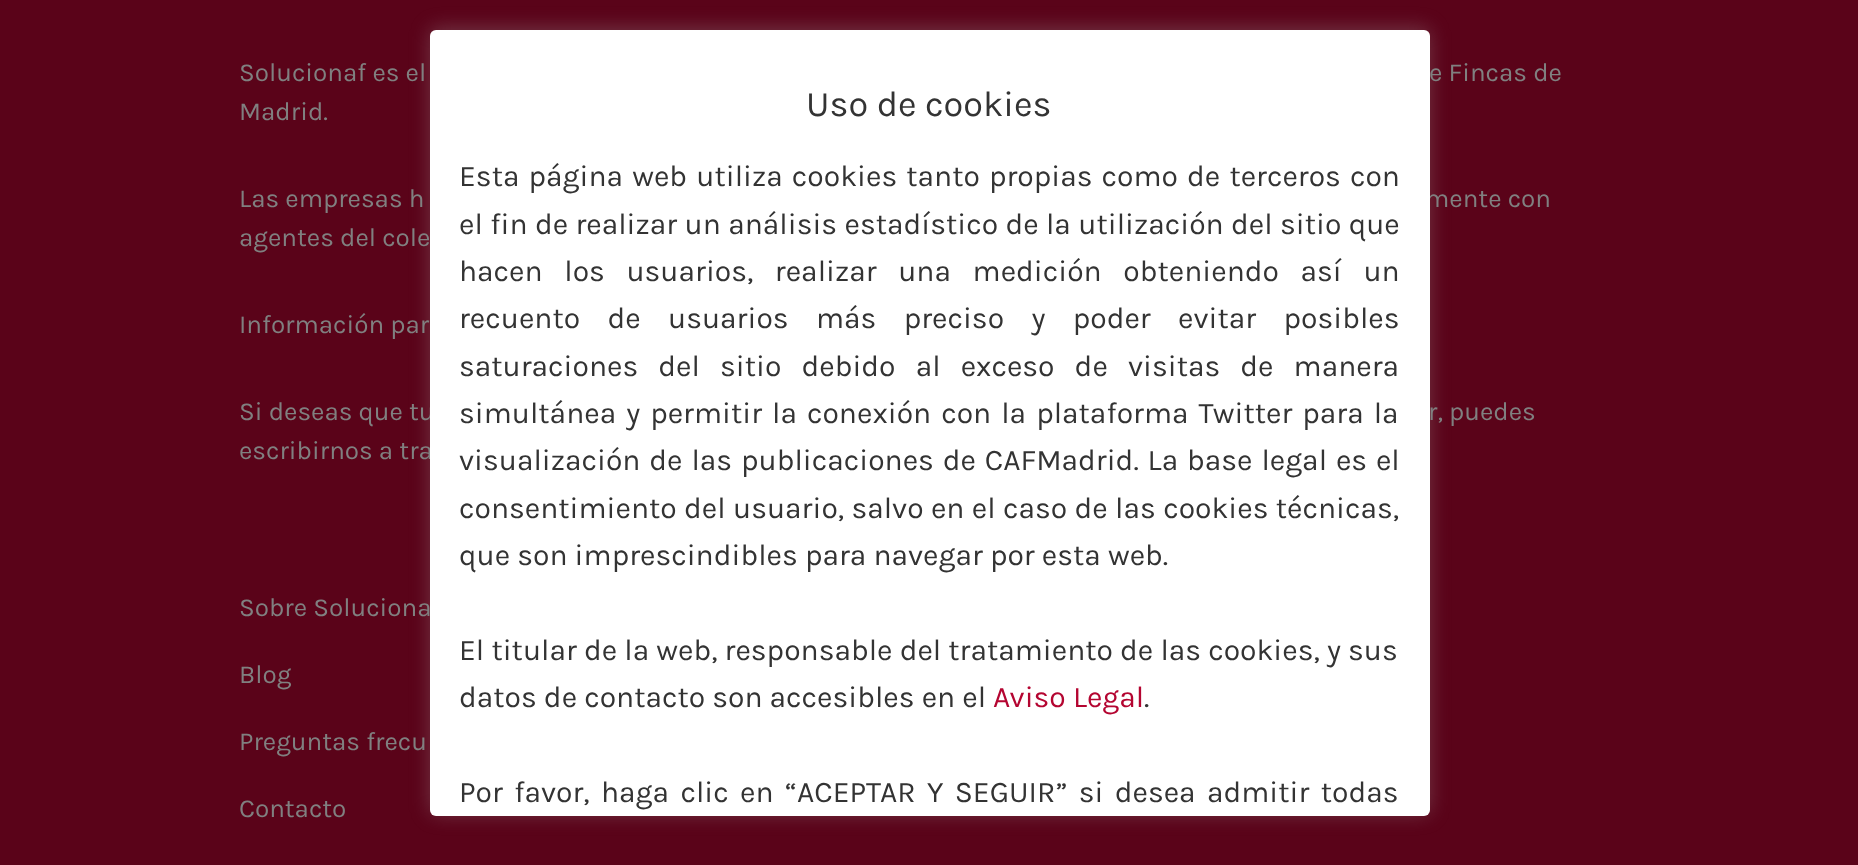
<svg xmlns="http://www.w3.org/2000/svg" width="1858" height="865">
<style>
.a{font:26px Karla;fill:#808080}
.b{font:36px Karla;fill:#333}
.c{font:30px Karla;fill:#333}
.d{font:30px Karla;fill:#b40531}
</style>
<rect width="100%" height="100%" fill="#5a0319"/>
<rect fill="#acabab4d" filter="blur(10px)" x="430" y="28" width="1000" height="786" rx="6"/>
<text class="a" x="239" y="81">Solucionaf es el</text>
<text class="a" x="1429" y="81">e Fincas de</text>
<text class="a" x="239" y="120">Madrid.</text>
<text class="a" x="239" y="207">Las empresas h</text>
<text class="a" x="1425" y="207">mente con</text>
<text class="a" x="239" y="246">agentes del cole</text>
<text class="a" x="239" y="333">Información par</text>
<text class="a" x="239" y="420">Si deseas que tu</text>
<text class="a" x="1428" y="420">r, puedes</text>
<text class="a" x="239" y="459">escribirnos a tra</text>
<text class="a" x="239" y="616">Sobre Soluciona</text>
<text class="a" x="239" y="683">Blog</text>
<text class="a" x="239" y="750">Preguntas frecu</text>
<text class="a" x="239" y="817">Contacto</text>
<rect fill="#fff" x="430" y="30" width="1000" height="786" rx="6"/>
<text class="b" x="806" y="116">Uso de cookies</text>
<text class="c" x="459" y="186" word-spacing="2">Esta página web utiliza cookies tanto propias como de terceros con</text>
<text class="c" x="459" y="234" word-spacing="0.25">el fin de realizar un análisis estadístico de la utilización del sitio que</text>
<text class="c" x="459" y="281" word-spacing="14.5">hacen los usuarios, realizar una medición obteniendo así un</text>
<text class="c" x="459" y="328" word-spacing="20.25">recuento de usuarios más preciso y poder evitar posibles</text>
<text class="c" x="459" y="376" word-spacing="13">saturaciones del sitio debido al exceso de visitas de manera</text>
<text class="c" x="459" y="423" word-spacing="2.9">simultánea y permitir la conexión con la plataforma Twitter para la</text>
<text class="c" x="459" y="470" word-spacing="1.75">visualización de las publicaciones de CAFMadrid. La base legal es el</text>
<text class="c" x="459" y="518" word-spacing="0.25">consentimiento del usuario, salvo en el caso de las cookies técnicas,</text>
<text class="c" x="459" y="565">que son imprescindibles para navegar por esta web.</text>
<text class="c" x="459" y="660">El titular de la web, responsable del tratamiento de las cookies, y sus</text>
<text class="c" x="459" y="707">datos de contacto son accesibles en el</text>
<text class="d" x="993" y="707">Aviso Legal</text>
<text class="c" x="1144" y="707">.</text>
<text class="c" x="459" y="802" word-spacing="4.25">Por favor, haga clic en “ACEPTAR Y SEGUIR” si desea admitir todas</text>
</svg>
